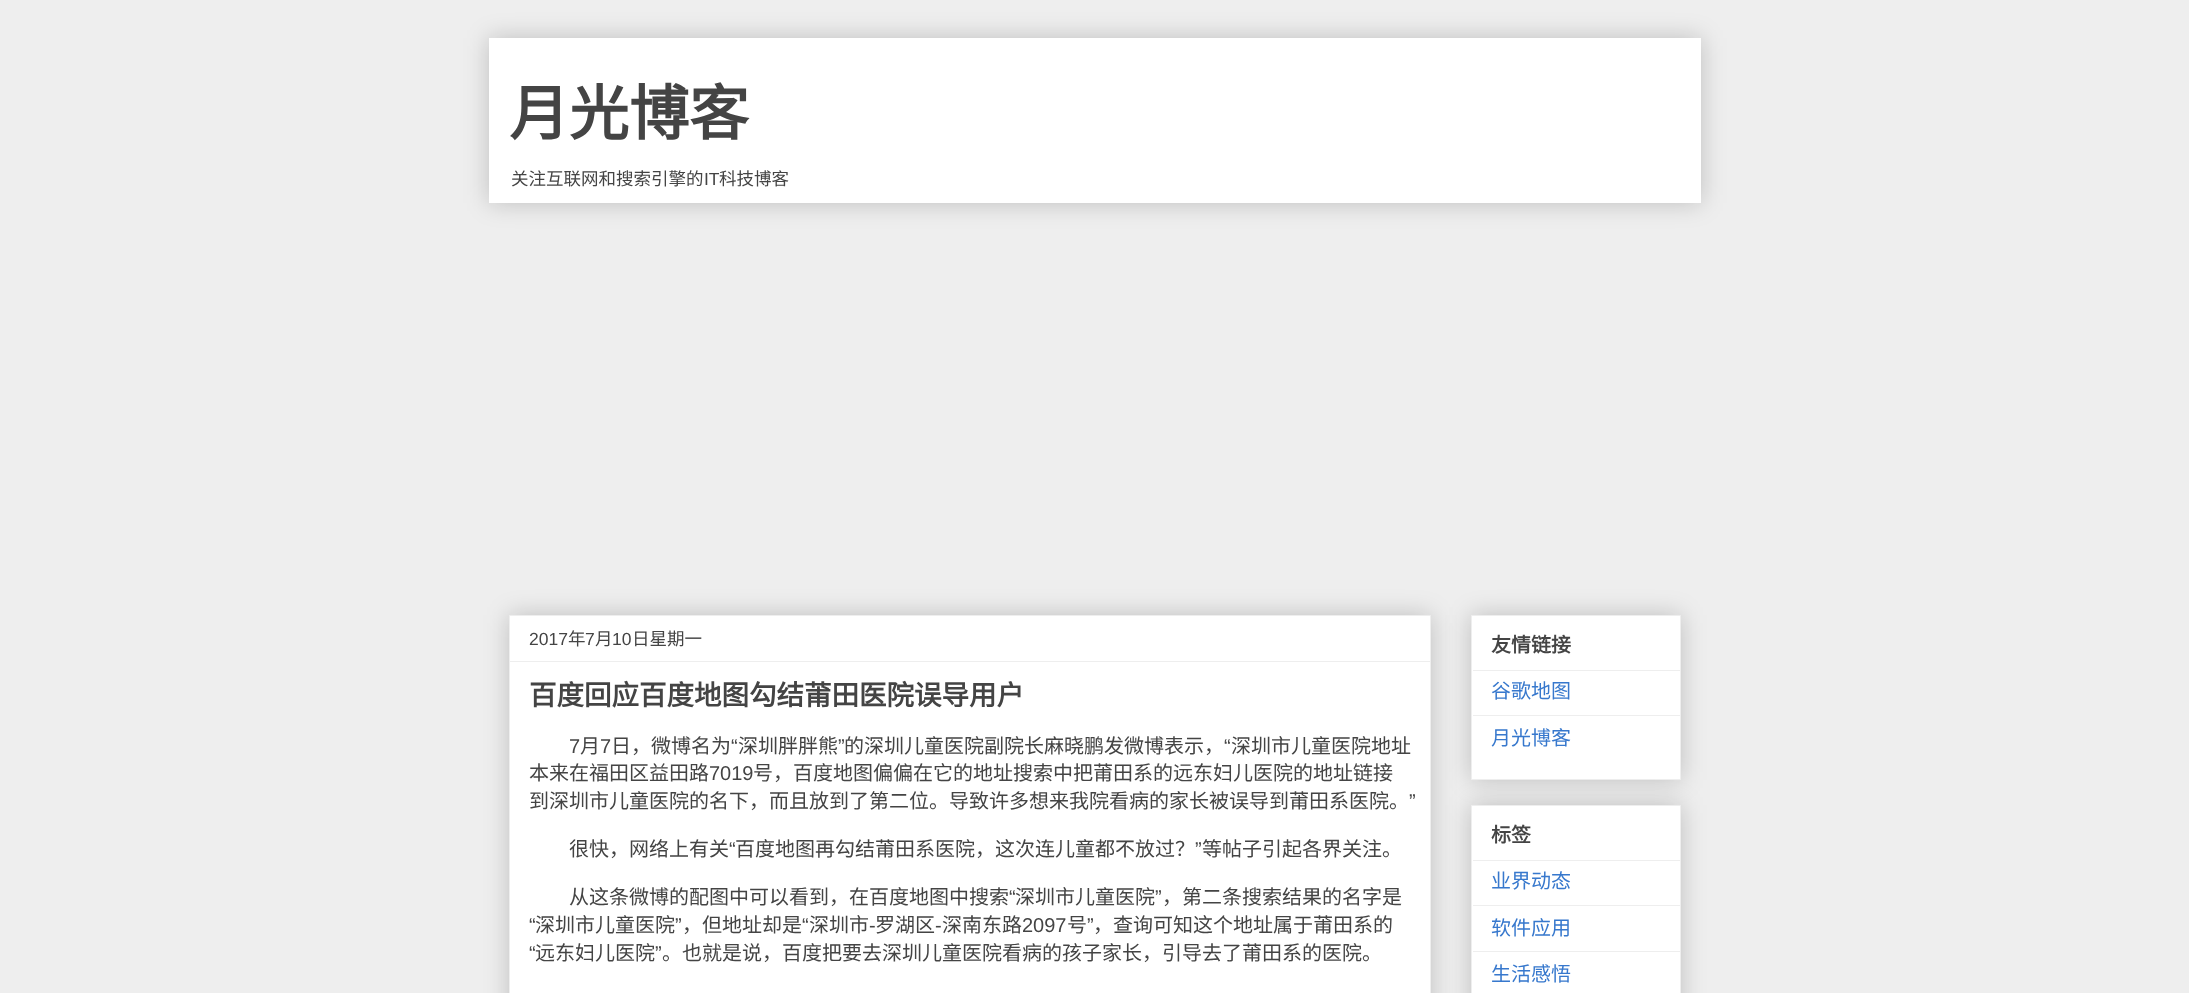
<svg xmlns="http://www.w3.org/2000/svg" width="2189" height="993">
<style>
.a{font:bold 60px Noto Sans CJK SC;fill:#444}
.b{font:17.5px Noto Sans CJK SC;fill:#444}
.c{font:17.5px Liberation Sans;fill:#444}
.d{font:bold 27.5px Noto Sans CJK SC;fill:#444}
.e{font:20px Liberation Sans;fill:#444}
.f{font:20px Noto Sans CJK SC;fill:#444}
.g{font:bold 20px Noto Sans CJK SC;fill:#444}
.h{font:20px Noto Sans CJK SC;fill:#3778cd}
</style>
<rect width="100%" height="100%" fill="#eee"/>
<path fill="#00000033" filter="blur(12.5px)" d="M489 38h1212v165H489z"/>
<path fill="#fff" d="M489 38h1212v165H489z"/>
<path fill="#00000033" filter="blur(12.5px)" d="M509 615h922v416H509z"/>
<path fill="#fff" stroke="#eee" d="M509.5 615.5h921v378H509.5z"/>
<path fill="#eee" d="M510 661h920v1H510z"/>
<path fill="#00000033" filter="blur(12.5px)" d="M1471 615h210v165H1471z"/>
<path fill="#fff" stroke="#eee" d="M1471.5 615.5h209v164H1471.5z"/>
<path fill="#eee" d="M1473 670h207v1H1473z"/>
<path fill="#eee" d="M1473 715h207v1H1473z"/>
<path fill="#00000033" filter="blur(12.5px)" d="M1471 805h210v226H1471z"/>
<path fill="#fff" stroke="#eee" d="M1471.5 805.5h209v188H1471.5z"/>
<path fill="#eee" d="M1473 860h207v1H1473z"/>
<path fill="#eee" d="M1473 905h207v1H1473z"/>
<path fill="#eee" d="M1473 951h207v1H1473z"/>
<text class="a" x="509" y="135">月光博客</text>
<text class="b" x="511" y="185">关注互联网和搜索引擎的</text>
<text class="c" x="704" y="185">IT</text>
<text class="b" x="719" y="185">科技博客</text>
<text class="c" x="529" y="645">2017</text>
<text class="b" x="568" y="645">年</text>
<text class="c" x="585" y="645">7</text>
<text class="b" x="595" y="645">月</text>
<text class="c" x="612" y="645">10</text>
<text class="b" x="632" y="645">日星期一</text>
<text class="d" x="529" y="705">百度回应百度地图勾结莆田医院误导用户</text>
<text class="e" x="569" y="753">7</text>
<text class="f" x="580" y="753">月</text>
<text class="e" x="600" y="753">7</text>
<text class="f" x="611" y="753">日，微博名为</text>
<text class="e" x="731" y="753">“</text>
<text class="f" x="738" y="753">深圳胖胖熊</text>
<text class="e" x="838" y="753">”</text>
<text class="f" x="844" y="753">的深圳儿童医院副院长麻晓鹏发微博表示，</text>
<text class="e" x="1224" y="753">“</text>
<text class="f" x="1231" y="753">深圳市儿童医院地址</text>
<text class="f" x="529" y="780">本来在福田区益田路</text>
<text class="e" x="709" y="780">7019</text>
<text class="f" x="753" y="780">号，百度地图偏偏在它的地址搜索中把莆田系的远东妇儿医院的地址链接</text>
<text class="f" x="529" y="808">到深圳市儿童医院的名下，而且放到了第二位。导致许多想来我院看病的家长被误导到莆田系医院。</text>
<text class="e" x="1409" y="808">”</text>
<text class="f" x="569" y="856">很快，网络上有关</text>
<text class="e" x="729" y="856">“</text>
<text class="f" x="735" y="856">百度地图再勾结莆田系医院，这次连儿童都不放过？</text>
<text class="e" x="1195" y="856">”</text>
<text class="f" x="1202" y="856">等帖子引起各界关注。</text>
<text class="f" x="569" y="904">从这条微博的配图中可以看到，在百度地图中搜索</text>
<text class="e" x="1009" y="904">“</text>
<text class="f" x="1015" y="904">深圳市儿童医院</text>
<text class="e" x="1155" y="904">”</text>
<text class="f" x="1162" y="904">，第二条搜索结果的名字是</text>
<text class="e" x="529" y="932">“</text>
<text class="f" x="535" y="932">深圳市儿童医院</text>
<text class="e" x="675" y="932">”</text>
<text class="f" x="682" y="932">，但地址却是</text>
<text class="e" x="802" y="932">“</text>
<text class="f" x="809" y="932">深圳市</text>
<text class="f" x="875" y="932">罗湖区</text>
<text class="f" x="942" y="932">深南东路</text>
<text class="e" x="1022" y="932">2097</text>
<text class="f" x="1067" y="932">号</text>
<text class="e" x="1087" y="932">”</text>
<text class="f" x="1093" y="932">，查询可知这个地址属于莆田系的</text>
<text class="e" x="869" y="932">-</text>
<text class="e" x="935" y="932">-</text>
<text class="e" x="529" y="960">“</text>
<text class="f" x="535" y="960">远东妇儿医院</text>
<text class="e" x="655" y="960">”</text>
<text class="f" x="662" y="960">。也就是说，百度把要去深圳儿童医院看病的孩子家长，引导去了莆田系的医院。</text>
<text class="g" x="1491" y="652">友情链接</text>
<text class="h" x="1491" y="698">谷歌地图</text>
<text class="h" x="1491" y="745">月光博客</text>
<text class="g" x="1491" y="842">标签</text>
<text class="h" x="1491" y="888">业界动态</text>
<text class="h" x="1491" y="935">软件应用</text>
<text class="h" x="1491" y="981">生活感悟</text>
</svg>
